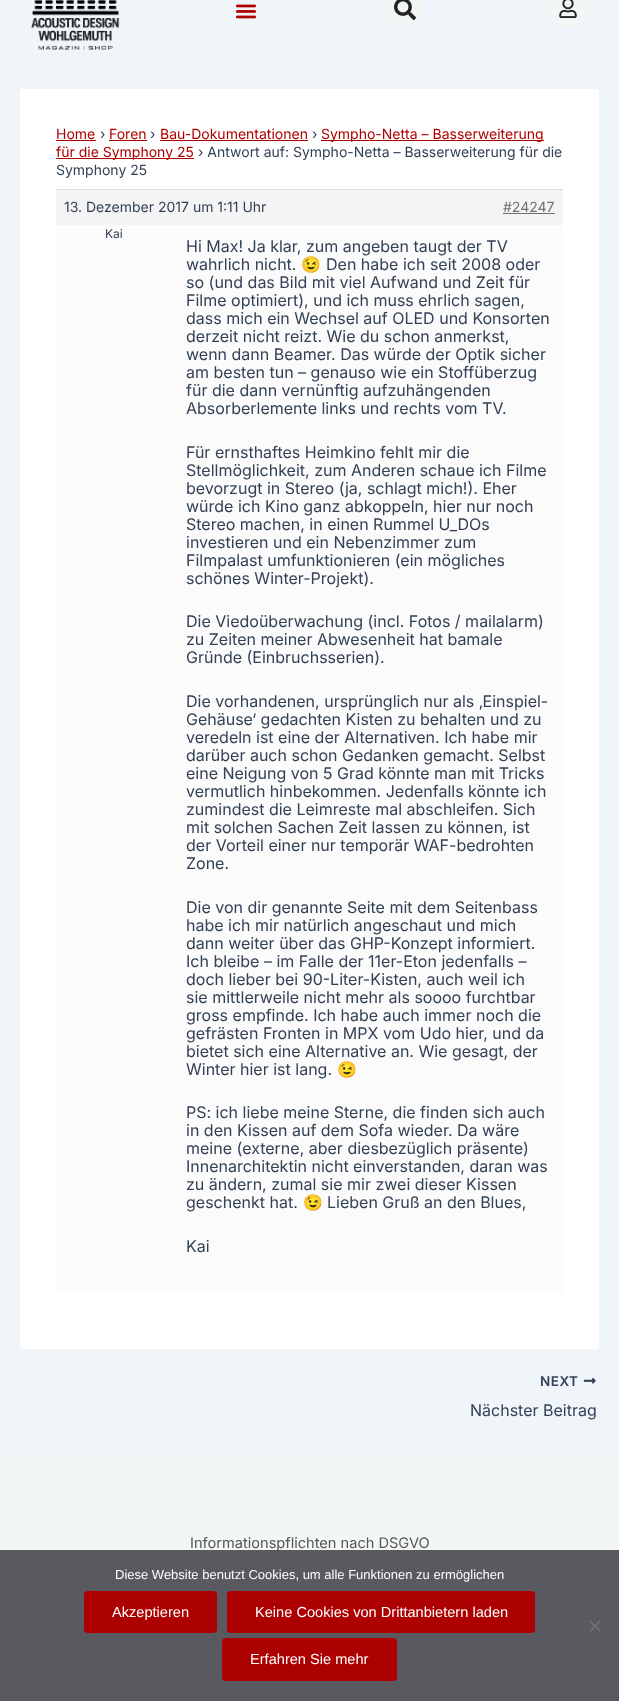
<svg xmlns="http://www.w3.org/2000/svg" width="619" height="1701">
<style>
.a{font:14px Inter;fill:#ad0000}
.b{font:14px Inter;fill:#334155}
.c{font:14px Inter;fill:#707070}
.d{font:12px Inter;fill:#334155}
.e{font:16px Inter;fill:#334155}
.f{font:16px Noto Color Emoji;fill:#334155}
.g{font:600 13.5px Inter;letter-spacing:0.5px;fill:#334155}
.h{font:14.6px Inter;fill:#555}
.i{font:13px Liberation Sans;fill:#fff}
.j{font:14.6px Liberation Sans;fill:#fff}
</style>
<rect width="100%" height="100%" fill="#f0f5fa"/>
<image href="1.png" x="31" y="0" width="89" height="50"/>
<image href="2.png" x="235" y="4" width="22" height="15"/>
<circle fill="#f2f6f5" cx="405" cy="9" r="20"/>
<image href="3.png" x="394" y="0" width="22" height="20"/>
<circle fill="#f2f6f5" cx="568" cy="8" r="21"/>
<image href="4.png" x="559" y="0" width="18" height="18"/>
<path fill="#fff" d="M20 89h579v1260H20z"/>
<path fill="#ad0000" d="M56 140h40v1H56z"/>
<path fill="#ad0000" d="M109 140h38v1H109z"/>
<path fill="#ad0000" d="M160 140h148v1H160z"/>
<path fill="#ad0000" d="M321 140h223v1H321z"/>
<path fill="#ad0000" d="M56 158h138v1H56z"/>
<path fill="#f4f4f4" d="M56 190h507v35H56z"/>
<path fill="#ddd" d="M56 189h507v1H56z"/>
<path fill="#707070" d="M503 213h52v1H503z"/>
<path fill="#fbfbfb" d="M56 225h507v1067H56z"/>
<image href="5.png" x="583" y="1377" width="13" height="7"/>
<path fill="#f2f6f5" d="M0 1453h619v248H0z"/>
<text class="a" x="56" y="139">Home</text>
<text class="b" x="100" y="139">›</text>
<text class="a" x="109" y="139">Foren</text>
<text class="b" x="150" y="139">›</text>
<text class="a" x="160" y="139">Bau-Dokumentationen</text>
<text class="b" x="312" y="139">›</text>
<text class="a" x="321" y="139">Sympho-Netta – Basserweiterung</text>
<text class="a" x="56" y="157">für die Symphony 25</text>
<text class="b" x="198" y="157">› Antwort auf: Sympho-Netta – Basserweiterung für die</text>
<text class="b" x="56" y="175">Symphony 25</text>
<text class="b" x="64" y="212">13. Dezember 2017 um 1:11 Uhr</text>
<text class="c" x="503" y="212">#24247</text>
<text class="d" x="105" y="238">Kai</text>
<text class="e" x="186" y="252">Hi Max! Ja klar, zum angeben taugt der TV</text>
<text class="e" x="186" y="270">wahrlich nicht.</text>
<text class="f" x="301" y="270">😉</text>
<text class="e" x="326" y="270">Den habe ich seit 2008 oder</text>
<text class="e" x="186" y="288">so (und das Bild mit viel Aufwand und Zeit für</text>
<text class="e" x="186" y="306">Filme optimiert), und ich muss ehrlich sagen,</text>
<text class="e" x="186" y="324">dass mich ein Wechsel auf OLED und Konsorten</text>
<text class="e" x="186" y="342">derzeit nicht reizt. Wie du schon anmerkst,</text>
<text class="e" x="186" y="360">wenn dann Beamer. Das würde der Optik sicher</text>
<text class="e" x="186" y="378">am besten tun – genauso wie ein Stoffüberzug</text>
<text class="e" x="186" y="396">für die dann vernünftig aufzuhängenden</text>
<text class="e" x="186" y="414">Absorberlemente links und rechts vom TV.</text>
<text class="e" x="186" y="458">Für ernsthaftes Heimkino fehlt mir die</text>
<text class="e" x="186" y="476">Stellmöglichkeit, zum Anderen schaue ich Filme</text>
<text class="e" x="186" y="494">bevorzugt in Stereo (ja, schlagt mich!). Eher</text>
<text class="e" x="186" y="512">würde ich Kino ganz abkoppeln, hier nur noch</text>
<text class="e" x="186" y="530">Stereo machen, in einen Rummel U_DOs</text>
<text class="e" x="186" y="548">investieren und ein Nebenzimmer zum</text>
<text class="e" x="186" y="566">Filmpalast umfunktionieren (ein mögliches</text>
<text class="e" x="186" y="584">schönes Winter-Projekt).</text>
<text class="e" x="186" y="627">Die Viedoüberwachung (incl. Fotos / mailalarm)</text>
<text class="e" x="186" y="645">zu Zeiten meiner Abwesenheit hat bamale</text>
<text class="e" x="186" y="663">Gründe (Einbruchsserien).</text>
<text class="e" x="186" y="707">Die vorhandenen, ursprünglich nur als ‚Einspiel-</text>
<text class="e" x="186" y="725">Gehäuse‘ gedachten Kisten zu behalten und zu</text>
<text class="e" x="186" y="743">veredeln ist eine der Alternativen. Ich habe mir</text>
<text class="e" x="186" y="761">darüber auch schon Gedanken gemacht. Selbst</text>
<text class="e" x="186" y="779">eine Neigung von 5 Grad könnte man mit Tricks</text>
<text class="e" x="186" y="797">vermutlich hinbekommen. Jedenfalls könnte ich</text>
<text class="e" x="186" y="815">zumindest die Leimreste mal abschleifen. Sich</text>
<text class="e" x="186" y="833">mit solchen Sachen Zeit lassen zu können, ist</text>
<text class="e" x="186" y="851">der Vorteil einer nur temporär WAF-bedrohten</text>
<text class="e" x="186" y="869">Zone.</text>
<text class="e" x="186" y="913">Die von dir genannte Seite mit dem Seitenbass</text>
<text class="e" x="186" y="931">habe ich mir natürlich angeschaut und mich</text>
<text class="e" x="186" y="949">dann weiter über das GHP-Konzept informiert.</text>
<text class="e" x="186" y="967">Ich bleibe – im Falle der 11er-Eton jedenfalls –</text>
<text class="e" x="186" y="985">doch lieber bei 90-Liter-Kisten, auch weil ich</text>
<text class="e" x="186" y="1003">sie mittlerweile nicht mehr als soooo furchtbar</text>
<text class="e" x="186" y="1021">gross empfinde. Ich habe auch immer noch die</text>
<text class="e" x="186" y="1039">gefrästen Fronten in MPX vom Udo hier, und da</text>
<text class="e" x="186" y="1057">bietet sich eine Alternative an. Wie gesagt, der</text>
<text class="e" x="186" y="1075">Winter hier ist lang.</text>
<text class="f" x="337" y="1075">😉</text>
<text class="e" x="186" y="1118">PS: ich liebe meine Sterne, die finden sich auch</text>
<text class="e" x="186" y="1136">in den Kissen auf dem Sofa wieder. Da wäre</text>
<text class="e" x="186" y="1154">meine (externe, aber diesbezüglich präsente)</text>
<text class="e" x="186" y="1172">Innenarchitektin nicht einverstanden, daran was</text>
<text class="e" x="186" y="1190">zu ändern, zumal sie mir zwei dieser Kissen</text>
<text class="e" x="186" y="1208">geschenkt hat.</text>
<text class="f" x="303" y="1208">😉</text>
<text class="e" x="327" y="1208">Lieben Gruß an den Blues,</text>
<text class="e" x="186" y="1252">Kai</text>
<text class="g" x="540" y="1386">NEXT</text>
<text class="e" x="470" y="1416">Nächster Beitrag</text>
<text class="h" x="190" y="1548">Informationspflichten nach DSGVO</text>
<path fill="#32323acc" d="M0 1550h619v151H0z"/>
<text class="i" x="115" y="1579">Diese Website benutzt Cookies, um alle Funktionen zu ermöglichen</text>
<rect fill="#ad0000" x="84" y="1591" width="133" height="42" rx="4"/>
<text class="j" x="112" y="1617">Akzeptieren</text>
<rect fill="#ad0000" x="227" y="1591" width="308" height="42" rx="4"/>
<text class="j" x="255" y="1617">Keine Cookies von Drittanbietern laden</text>
<rect fill="#ad0000" x="222" y="1638" width="175" height="43" rx="4"/>
<text class="j" x="250" y="1664">Erfahren Sie mehr</text>
<path fill="#6c6d70" d="M599.5 1620l1.5 1.5l-10.5 10.5l-1.5-1.5z"/>
<path fill="#6c6d70" d="M589 1621.5l1.5-1.5l10.5 10.5l-1.5 1.5z"/>
</svg>
